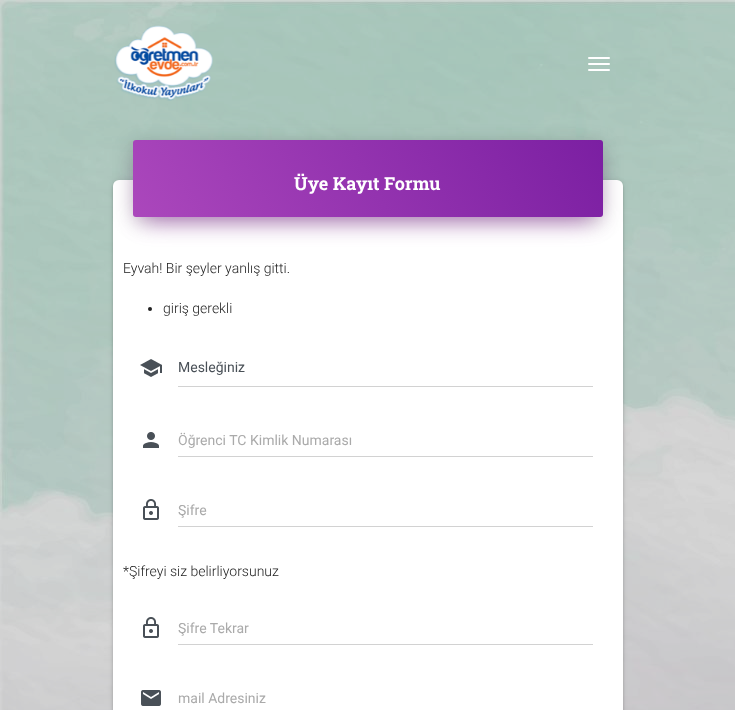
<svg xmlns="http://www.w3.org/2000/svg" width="735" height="710">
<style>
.a{font:bold 18px Roboto Slab;fill:#fff}
.b{font:300 14px Roboto;fill:#212121}
.c{font:14px Roboto;fill:#495057}
.d{font:14px Roboto;fill:#aaa}
</style>
<defs>
<linearGradient id="g1" gradientUnits="userSpaceOnUse" x1="175" y1="290" x2="561" y2="67"><stop offset="0" stop-color="#ab47bc"/><stop offset="1" stop-color="#7b1fa2"/></linearGradient>
</defs>
<rect width="100%" height="100%" fill="#fff"/>
<image href="1.png" x="0" y="0" width="735" height="710"/>
<image href="2.png" x="114" y="25" width="99" height="76"/>
<rect fill="#fff" x="588" y="57" width="22" height="2" rx="1"/>
<rect fill="#fff" x="588" y="63" width="22" height="2" rx="1"/>
<rect fill="#fff" x="588" y="69" width="22" height="2" rx="1"/>
<rect fill="#0000001f" filter="blur(2.5px)" x="113" y="181" width="510" height="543" rx="6"/>
<rect fill="#00000024" filter="blur(1px)" x="113" y="182" width="510" height="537" rx="6"/>
<rect fill="#fff" x="113" y="180" width="510" height="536" rx="6"/>
<path fill="#9c27b099" filter="blur(12px)" d="M144 164h448v55H144z"/>
<rect fill="#00000033" filter="blur(10px)" x="133" y="145" width="470" height="77" rx="3"/>
<rect fill="url(#g1)" x="133" y="140" width="470" height="77" rx="3"/>
<circle fill="#212121" cx="150" cy="309" r="2"/>
<image href="3.png" x="140" y="359" width="22" height="18"/>
<path fill="#d2d2d2" d="M178 386h415v1H178z"/>
<image href="4.png" x="143" y="432" width="16" height="16"/>
<path fill="#d2d2d2" d="M178 456h415v1H178z"/>
<image href="5.png" x="143" y="499" width="16" height="21"/>
<path fill="#d2d2d2" d="M178 526h415v1H178z"/>
<image href="5.png" x="143" y="617" width="16" height="21"/>
<path fill="#d2d2d2" d="M178 644h415v1H178z"/>
<image href="6.png" x="141" y="690" width="20" height="16"/>
<text class="a" x="294" y="190">Üye Kayıt Formu</text>
<text class="b" x="123" y="273">Eyvah! Bir şeyler yanlış gitti.</text>
<text class="b" x="163" y="313">giriş gerekli</text>
<text class="c" x="178" y="372">Mesleğiniz</text>
<text class="d" x="178" y="445">Öğrenci TC Kimlik Numarası</text>
<text class="d" x="178" y="515">Şifre</text>
<text class="b" x="123" y="576">*Şifreyi siz belirliyorsunuz</text>
<text class="d" x="178" y="633">Şifre Tekrar</text>
<text class="d" x="178" y="703">mail Adresiniz</text>
</svg>
